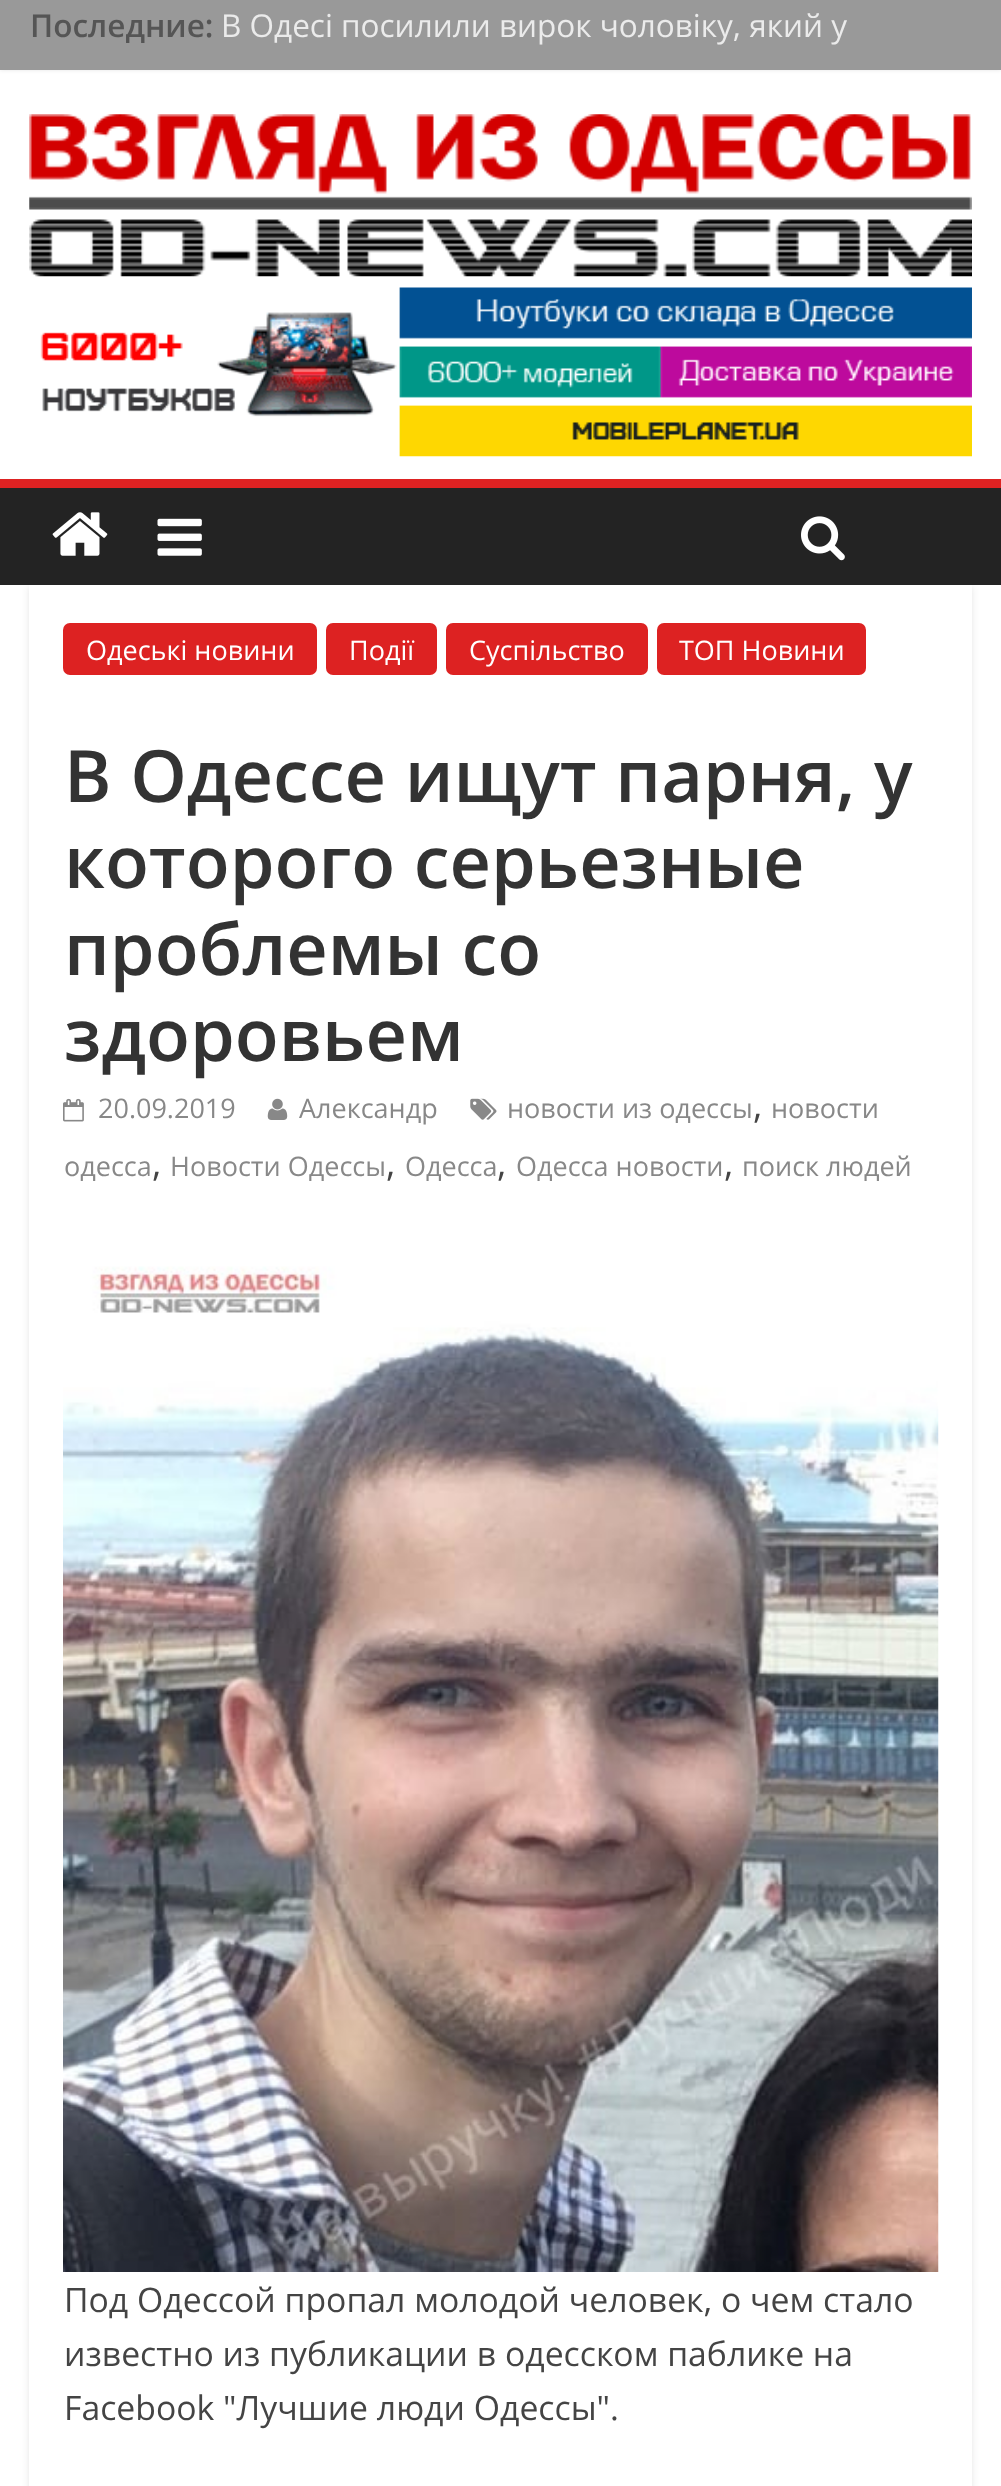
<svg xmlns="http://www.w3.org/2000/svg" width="1001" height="2486">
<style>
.a{font:600 31.5px Open Sans;fill:#555}
.b{font:31.5px Open Sans;fill:#ebebeb}
.c{font:27px Open Sans;fill:#fff}
.d{font:600 72px Open Sans;fill:#333}
.e{font:27px Open Sans;fill:#888}
.f{font:36px Open Sans;fill:#444}
.g{font:33.75px Open Sans;fill:#444}
</style>
<defs>
<clipPath id="clip1"><path d="M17 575h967v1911h-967zm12 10h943v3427h-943z" clip-rule="evenodd"/></clipPath>
</defs>
<rect width="100%" height="100%" fill="#fff"/>
<path fill="#0000001a" filter="blur(2px)" d="M0 -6h1001v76H0z"/>
<path fill="#999" d="M0 0h1001v70H0z"/>
<image href="1.png" x="29" y="114" width="943" height="163"/>
<image href="2.png" x="40" y="287" width="932" height="170"/>
<g clip-path="url(#clip1)">
<path fill="#0000001a" filter="blur(3.5px)" d="M29 587h943v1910H29z"/>
</g>
<path fill="#232323" d="M0 488h1001v97H0z"/>
<path fill="#d22" d="M0 479h1001v9H0z"/>
<image href="3.png" x="52" y="512" width="56" height="44"/>
<image href="4.png" x="157" y="518" width="45" height="38"/>
<image href="5.png" x="801" y="516" width="44" height="45"/>
<rect fill="#d22" x="63" y="623" width="254" height="52" rx="7"/>
<rect fill="#d22" x="326" y="623" width="111" height="52" rx="7"/>
<rect fill="#d22" x="446" y="623" width="202" height="52" rx="7"/>
<rect fill="#d22" x="657" y="623" width="209" height="52" rx="7"/>
<image href="6.png" x="63" y="1098" width="21" height="24"/>
<image href="7.png" x="267" y="1098" width="21" height="22"/>
<image href="8.png" x="470" y="1098" width="27" height="22"/>
<image href="9.png" x="63" y="1266" width="876" height="1006"/>
<text class="a" x="30" y="37">Последние:</text>
<text class="b" x="221" y="37">В Одесі посилили вирок чоловіку, який у</text>
<text class="c" x="86" y="660">Одеські новини</text>
<text class="c" x="349" y="660">Події</text>
<text class="c" x="469" y="660">Суспільство</text>
<text class="c" x="679" y="660">ТОП Новини</text>
<text class="d" x="64" y="802">В Одессе ищут парня, у</text>
<text class="d" x="64" y="888">которого серьезные</text>
<text class="d" x="64" y="975">проблемы со</text>
<text class="d" x="64" y="1061">здоровьем</text>
<text class="e" x="98" y="1118">20.09.2019</text>
<text class="e" x="299" y="1118">Александр</text>
<text class="e" x="507" y="1118">новости из одессы</text>
<text class="f" x="753" y="1118">,</text>
<text class="e" x="771" y="1118">новости</text>
<text class="e" x="64" y="1176">одесса</text>
<text class="f" x="152" y="1176">,</text>
<text class="e" x="170" y="1176">Новости Одессы</text>
<text class="f" x="386" y="1176">,</text>
<text class="e" x="405" y="1176">Одесса</text>
<text class="f" x="497" y="1176">,</text>
<text class="e" x="516" y="1176">Одесса новости</text>
<text class="f" x="724" y="1176">,</text>
<text class="e" x="742" y="1176">поиск людей</text>
<text class="g" x="64" y="2312">Под Одессой пропал молодой человек, о чем стало</text>
<text class="g" x="64" y="2366">известно из публикации в одесском паблике на</text>
<text class="g" x="64" y="2420">Facebook "Лучшие люди Одессы".</text>
</svg>
